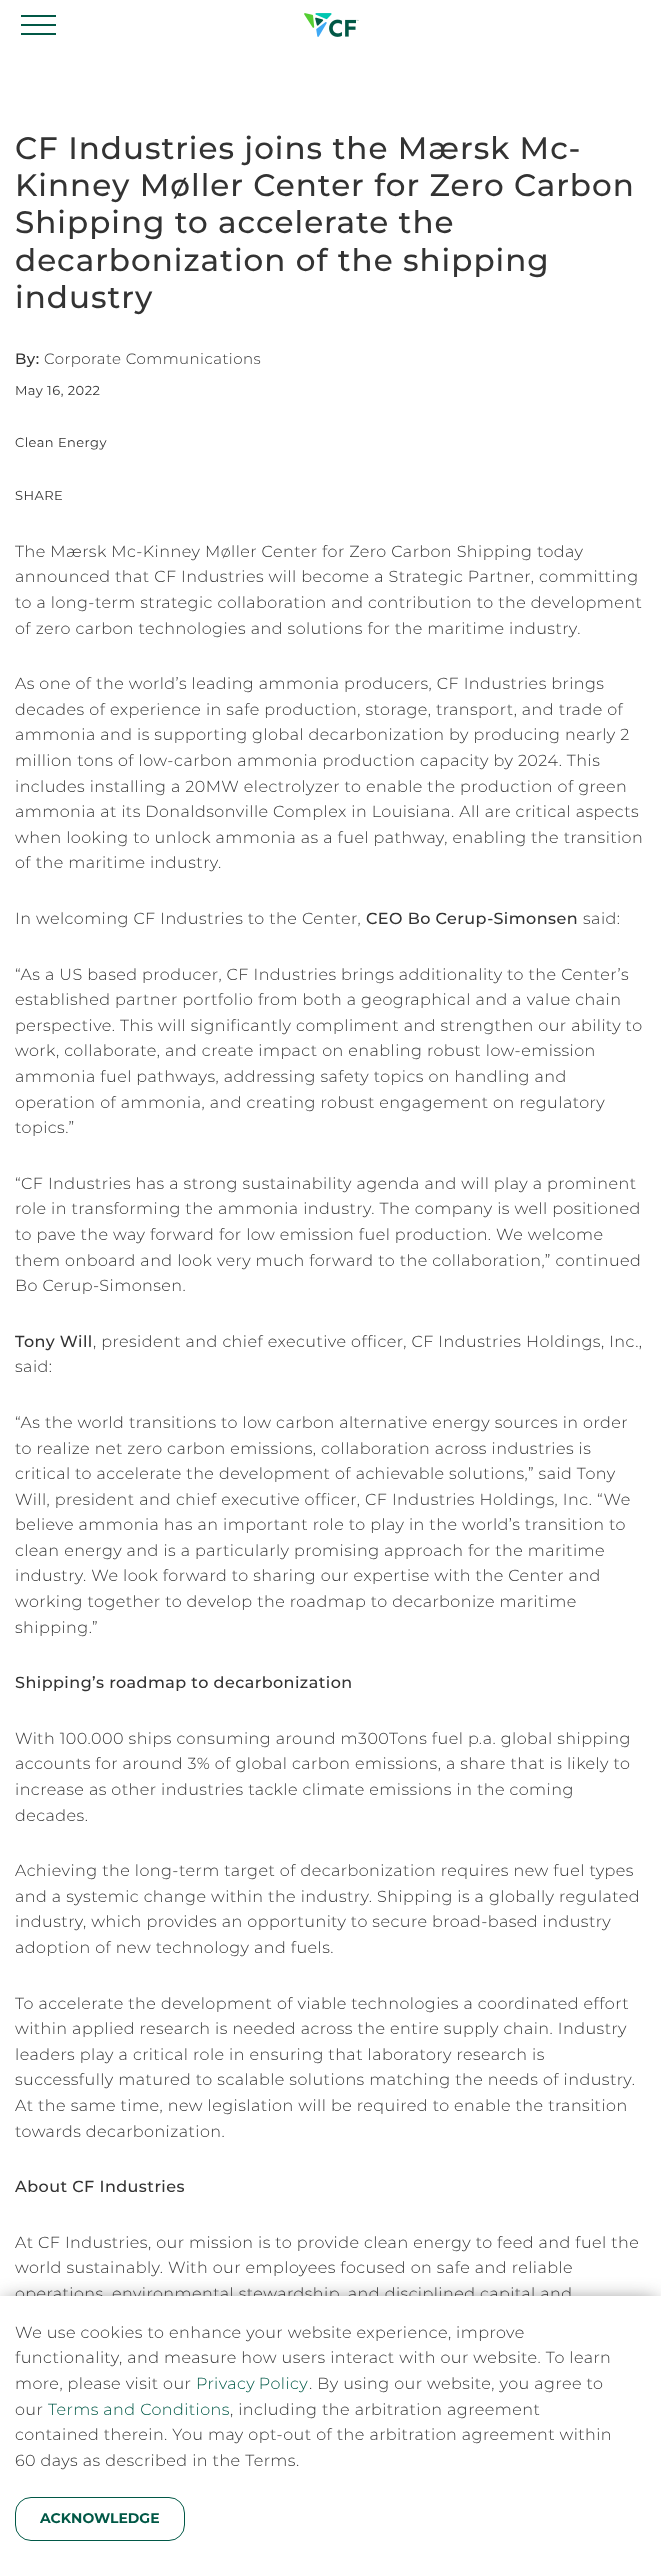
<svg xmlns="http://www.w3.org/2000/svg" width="661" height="2565">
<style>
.a{font:500 31px Montserrat;letter-spacing:1px;fill:#333}
.b{font:500 15px Montserrat;letter-spacing:0.45px;fill:#333}
.c{font:300 15px Montserrat;letter-spacing:0.45px;fill:#333}
.d{font:13px Montserrat;letter-spacing:0.45px;fill:#333}
.e{font:300 16px Montserrat;letter-spacing:0.45px;fill:#333}
.f{font:500 16px Montserrat;letter-spacing:0.45px;fill:#333}
.g{font:300 16px Montserrat;letter-spacing:0.45px;fill:#015846}
.h{font:bold 14px Montserrat;fill:#015846}
</style>
<rect width="100%" height="100%" fill="#fff"/>
<path fill="#015846" d="M21 15h35v2H21z"/>
<path fill="#015846" d="M21 24h35v2H21z"/>
<path fill="#015846" d="M21 33h35v2H21z"/>
<image href="1.png" x="304" y="13" width="55" height="24"/>
<path fill="#4a4a4acc" filter="blur(10px)" d="M5 2301h651v259H5z"/>
<text class="a" x="15" y="159">CF Industries joins the Mærsk Mc-</text>
<text class="a" x="15" y="196">Kinney Møller Center for Zero Carbon</text>
<text class="a" x="15" y="233">Shipping to accelerate the</text>
<text class="a" x="15" y="271">decarbonization of the shipping</text>
<text class="a" x="15" y="308">industry</text>
<text class="b" x="15" y="364">By:</text>
<text class="c" x="44" y="364">Corporate Communications</text>
<text class="d" x="15" y="395">May 16, 2022</text>
<text class="d" x="15" y="447">Clean Energy</text>
<text class="d" x="15" y="500">SHARE</text>
<text class="e" x="15" y="557">The Mærsk Mc-Kinney Møller Center for Zero Carbon Shipping today</text>
<text class="e" x="15" y="582">announced that CF Industries will become a Strategic Partner, committing</text>
<text class="e" x="15" y="608">to a long-term strategic collaboration and contribution to the development</text>
<text class="e" x="15" y="634">of zero carbon technologies and solutions for the maritime industry.</text>
<text class="e" x="15" y="689">As one of the world’s leading ammonia producers, CF Industries brings</text>
<text class="e" x="15" y="715">decades of experience in safe production, storage, transport, and trade of</text>
<text class="e" x="15" y="740">ammonia and is supporting global decarbonization by producing nearly 2</text>
<text class="e" x="15" y="766">million tons of low-carbon ammonia production capacity by 2024. This</text>
<text class="e" x="15" y="792">includes installing a 20MW electrolyzer to enable the production of green</text>
<text class="e" x="15" y="817">ammonia at its Donaldsonville Complex in Louisiana. All are critical aspects</text>
<text class="e" x="15" y="843">when looking to unlock ammonia as a fuel pathway, enabling the transition</text>
<text class="e" x="15" y="868">of the maritime industry.</text>
<text class="e" x="15" y="924">In welcoming CF Industries to the Center,</text>
<text class="f" x="366" y="924">CEO Bo Cerup-Simonsen</text>
<text class="e" x="583" y="924">said:</text>
<text class="e" x="15" y="980">“As a US based producer, CF Industries brings additionality to the Center’s</text>
<text class="e" x="15" y="1005">established partner portfolio from both a geographical and a value chain</text>
<text class="e" x="15" y="1031">perspective. This will significantly compliment and strengthen our ability to</text>
<text class="e" x="15" y="1056">work, collaborate, and create impact on enabling robust low-emission</text>
<text class="e" x="15" y="1082">ammonia fuel pathways, addressing safety topics on handling and</text>
<text class="e" x="15" y="1108">operation of ammonia, and creating robust engagement on regulatory</text>
<text class="e" x="15" y="1133">topics.”</text>
<text class="e" x="15" y="1189">“CF Industries has a strong sustainability agenda and will play a prominent</text>
<text class="e" x="15" y="1214">role in transforming the ammonia industry. The company is well positioned</text>
<text class="e" x="15" y="1240">to pave the way forward for low emission fuel production. We welcome</text>
<text class="e" x="15" y="1266">them onboard and look very much forward to the collaboration,” continued</text>
<text class="e" x="15" y="1291">Bo Cerup-Simonsen.</text>
<text class="f" x="15" y="1347">Tony Will</text>
<text class="e" x="93" y="1347">, president and chief executive officer, CF Industries Holdings, Inc.,</text>
<text class="e" x="15" y="1372">said:</text>
<text class="e" x="15" y="1428">“As the world transitions to low carbon alternative energy sources in order</text>
<text class="e" x="15" y="1454">to realize net zero carbon emissions, collaboration across industries is</text>
<text class="e" x="15" y="1479">critical to accelerate the development of achievable solutions,” said Tony</text>
<text class="e" x="15" y="1505">Will, president and chief executive officer, CF Industries Holdings, Inc. “We</text>
<text class="e" x="15" y="1530">believe ammonia has an important role to play in the world’s transition to</text>
<text class="e" x="15" y="1556">clean energy and is a particularly promising approach for the maritime</text>
<text class="e" x="15" y="1581">industry. We look forward to sharing our expertise with the Center and</text>
<text class="e" x="15" y="1607">working together to develop the roadmap to decarbonize maritime</text>
<text class="e" x="15" y="1633">shipping.”</text>
<text class="f" x="15" y="1688">Shipping’s roadmap to decarbonization</text>
<text class="e" x="15" y="1744">With 100.000 ships consuming around m300Tons fuel p.a. global shipping</text>
<text class="e" x="15" y="1769">accounts for around 3% of global carbon emissions, a share that is likely to</text>
<text class="e" x="15" y="1795">increase as other industries tackle climate emissions in the coming</text>
<text class="e" x="15" y="1821">decades.</text>
<text class="e" x="15" y="1876">Achieving the long-term target of decarbonization requires new fuel types</text>
<text class="e" x="15" y="1902">and a systemic change within the industry. Shipping is a globally regulated</text>
<text class="e" x="15" y="1927">industry, which provides an opportunity to secure broad-based industry</text>
<text class="e" x="15" y="1953">adoption of new technology and fuels.</text>
<text class="e" x="15" y="2009">To accelerate the development of viable technologies a coordinated effort</text>
<text class="e" x="15" y="2034">within applied research is needed across the entire supply chain. Industry</text>
<text class="e" x="15" y="2060">leaders play a critical role in ensuring that laboratory research is</text>
<text class="e" x="15" y="2085">successfully matured to scalable solutions matching the needs of industry.</text>
<text class="e" x="15" y="2111">At the same time, new legislation will be required to enable the transition</text>
<text class="e" x="15" y="2137">towards decarbonization.</text>
<text class="f" x="15" y="2192">About CF Industries</text>
<text class="e" x="15" y="2248">At CF Industries, our mission is to provide clean energy to feed and fuel the</text>
<text class="e" x="15" y="2273">world sustainably. With our employees focused on safe and reliable</text>
<text class="e" x="15" y="2299">operations, environmental stewardship, and disciplined capital and</text>
<path fill="#fff" d="M0 2296h661v269H0z"/>
<text class="e" x="15" y="2338">We use cookies to enhance your website experience, improve</text>
<text class="e" x="15" y="2363">functionality, and measure how users interact with our website. To learn</text>
<text class="e" x="15" y="2389">more, please visit our</text>
<text class="g" x="196" y="2389" word-spacing="-1">Privacy Policy</text>
<text class="e" x="309" y="2389">. By using our website, you agree to</text>
<text class="e" x="15" y="2415">our</text>
<text class="g" x="48" y="2415">Terms and Conditions</text>
<text class="e" x="230" y="2415">, including the arbitration agreement</text>
<text class="e" x="15" y="2440">contained therein. You may opt-out of the arbitration agreement within</text>
<text class="e" x="15" y="2466">60 days as described in the Terms.</text>
<rect fill="none" stroke="#015846" x="15.5" y="2497.5" width="169" height="43" rx="15.5"/>
<text class="h" x="40" y="2523">ACKNOWLEDGE</text>
</svg>
